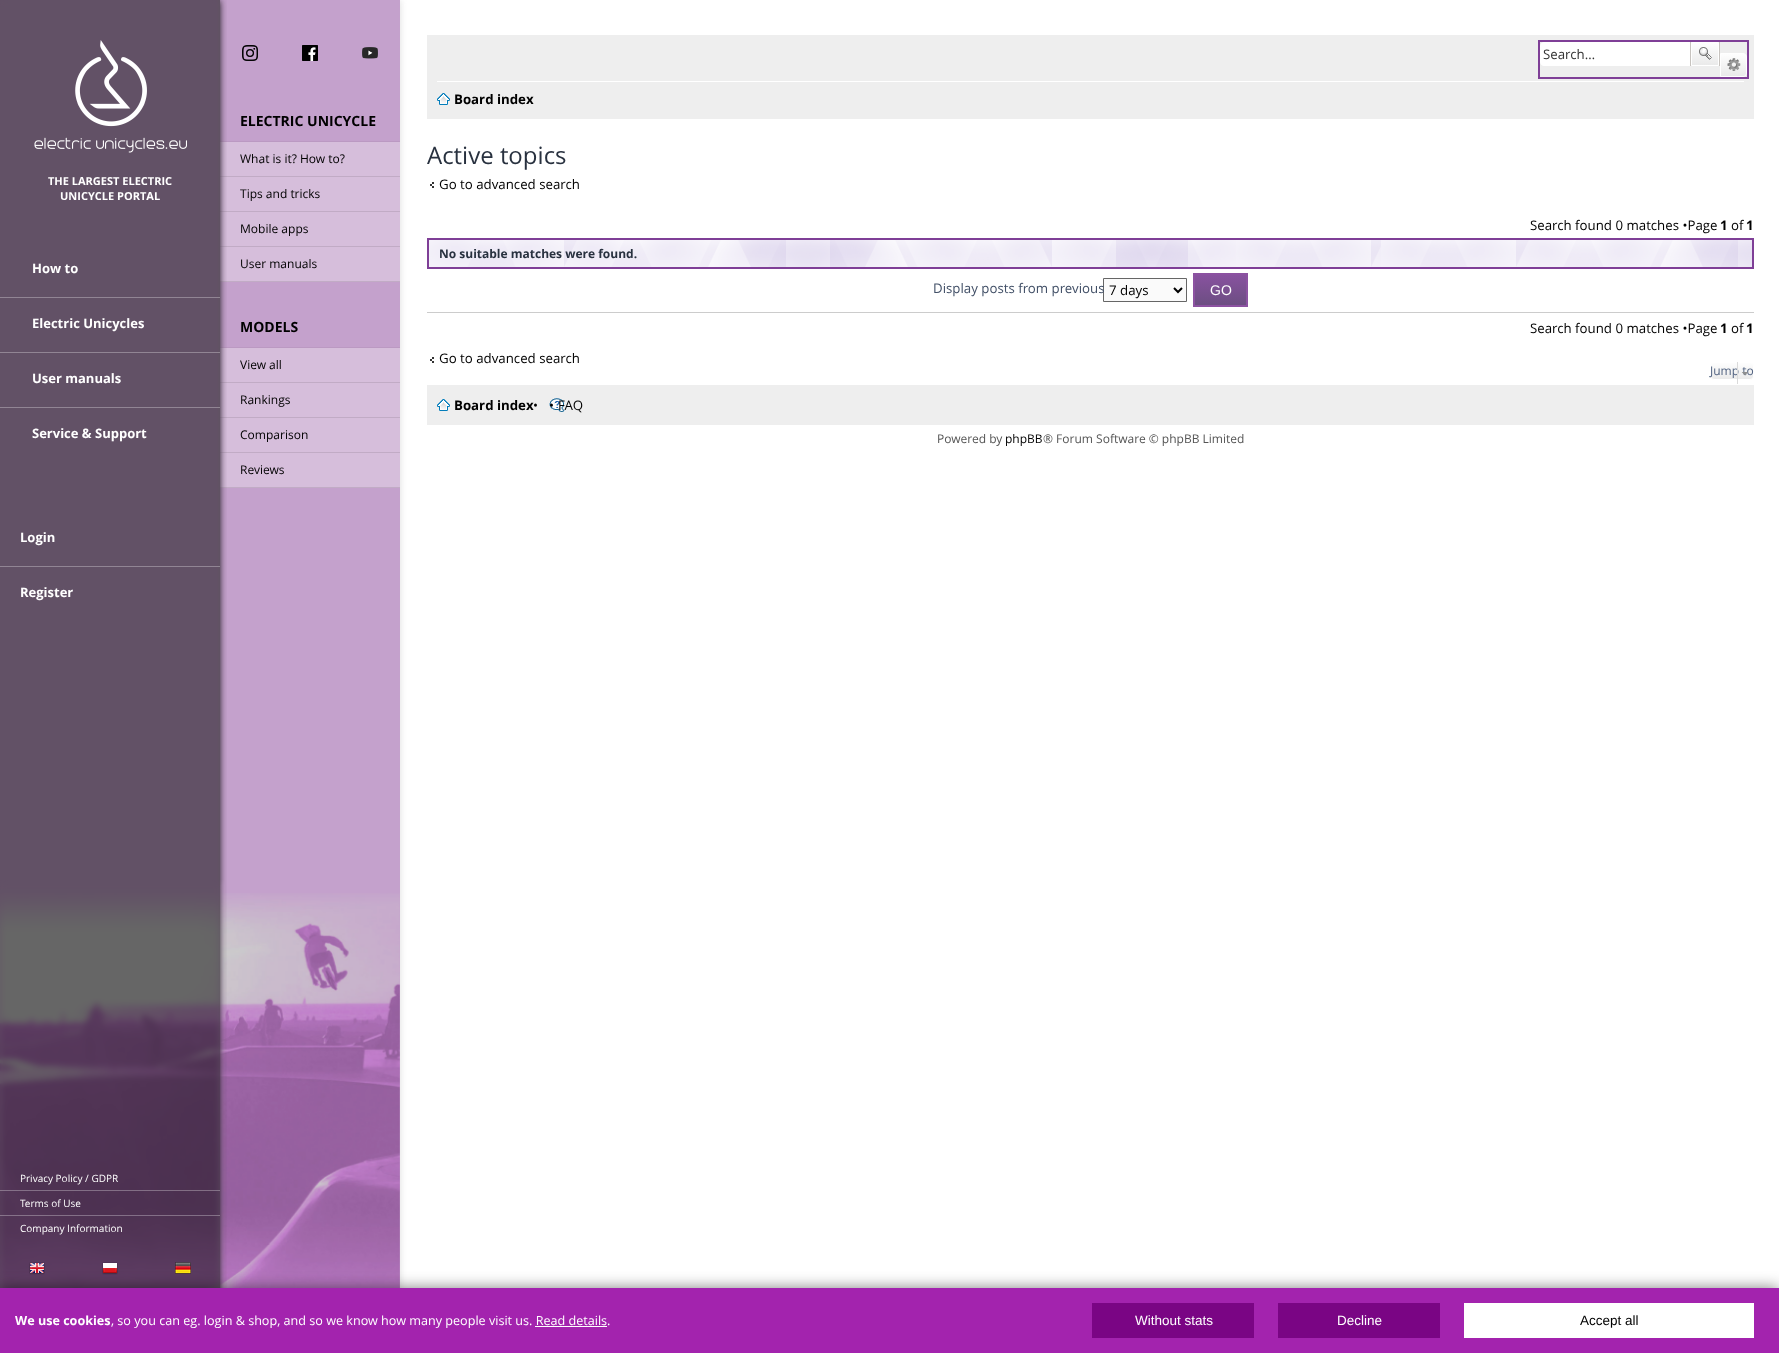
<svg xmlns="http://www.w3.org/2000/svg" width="1779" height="1353">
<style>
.a{font:bold 14px Open Sans;fill:#000}
.b{font:12px Open Sans;fill:#000}
.c{font:bold 11px Open Sans;fill:#fff}
.d{font:bold 13px Open Sans;fill:#fff}
.e{font:10px Open Sans;fill:#fff}
.f{font:13.25px Open Sans;fill:#333}
.g{font:bold 13.25px Open Sans;fill:#000}
.h{font:24px Open Sans;fill:#28313f}
.i{font:13.25px Open Sans;fill:#000}
.j{font:bold 12px Open Sans;fill:#28313f}
.k{font:13.25px Open Sans;fill:#425067}
.l{font:14px Liberation Sans;fill:#fff}
.m{font:12px Open Sans;fill:#536482}
.n{font:12px Open Sans;fill:#555}
.o{font:bold 12.6px Open Sans;fill:#fff}
.p{font:12.6px Open Sans;fill:#fff}
.q{font:13.5px Liberation Sans;fill:#fff}
.r{font:13.5px Liberation Sans;fill:#000}
</style>
<defs>
<clipPath id="clip1"><path d="M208 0h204v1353h-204zm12 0h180v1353h-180z" clip-rule="evenodd"/></clipPath>
<clipPath id="clip2"><path d="M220 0h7v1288H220z"/></clipPath>
<linearGradient id="g1" gradientUnits="userSpaceOnUse" x1="1705" y1="42" x2="1705" y2="66"><stop offset="0" stop-color="#fff"/><stop offset="1" stop-color="#e9e9e9"/></linearGradient>
<linearGradient id="g2" gradientUnits="userSpaceOnUse" x1="1734" y1="53" x2="1734" y2="77"><stop offset="0" stop-color="#fff"/><stop offset="1" stop-color="#e9e9e9"/></linearGradient>
<linearGradient id="g3" gradientUnits="userSpaceOnUse" x1="1221" y1="275" x2="1221" y2="305"><stop offset="0" stop-color="#88529f"/><stop offset="1" stop-color="#6c4e82"/></linearGradient>
<linearGradient id="g4" gradientUnits="userSpaceOnUse" x1="1732" y1="362" x2="1732" y2="380"><stop offset="0" stop-color="#fff"/><stop offset="1" stop-color="#e9e9e9"/></linearGradient>
</defs>
<rect width="100%" height="100%" fill="#fff"/>
<path fill="#f6caff" d="M0 0h400v1288H0z"/>
<image href="1.png" x="0" y="893" width="400" height="395"/>
<g clip-path="url(#clip1)">
<path fill="#ddd" filter="blur(3.5px)" d="M220 0h180v1353H220z"/>
</g>
<path fill="#00000033" d="M220 0h180v1288H220z"/>
<path fill="#bb99c2" d="M220 141h180v1H220z"/>
<path fill="#d6bedb" d="M220 142h180v34H220z"/>
<path fill="#c1abc5" d="M220 176h180v1H220z"/>
<path fill="#d6bedb" d="M220 177h180v34H220z"/>
<path fill="#c1abc5" d="M220 211h180v1H220z"/>
<path fill="#d6bedb" d="M220 212h180v34H220z"/>
<path fill="#c1abc5" d="M220 246h180v1H220z"/>
<path fill="#d6bedb" d="M220 247h180v34H220z"/>
<path fill="#c1abc5" d="M220 281h180v1H220z"/>
<path fill="#bb99c2" d="M220 347h180v1H220z"/>
<path fill="#d6bedb" d="M220 348h180v34H220z"/>
<path fill="#c1abc5" d="M220 382h180v1H220z"/>
<path fill="#d6bedb" d="M220 383h180v34H220z"/>
<path fill="#c1abc5" d="M220 417h180v1H220z"/>
<path fill="#d6bedb" d="M220 418h180v34H220z"/>
<path fill="#c1abc5" d="M220 452h180v1H220z"/>
<path fill="#d6bedb" d="M220 453h180v34H220z"/>
<path fill="#c1abc5" d="M220 487h180v1H220z"/>
<path fill="#f6caff" filter="blur(3px)" d="M0 0h220v1353H0z"/>
<image href="2.png" x="0" y="880" width="225" height="408"/>
<image href="3.png" x="242" y="45" width="16" height="16"/>
<image href="4.png" x="302" y="45" width="16" height="16"/>
<image href="5.png" x="362" y="47" width="16" height="12"/>
<g clip-path="url(#clip2)">
<path fill="#000" filter="blur(3.5px)" d="M0 0h220v1353H0z"/>
</g>
<path fill="#00000099" d="M0 0h220v1288H0z"/>
<image href="6.png" x="34" y="40" width="153" height="113"/>
<path fill="#ffffff4d" d="M0 297h220v1H0z"/>
<path fill="#ffffff4d" d="M0 352h220v1H0z"/>
<path fill="#ffffff4d" d="M0 407h220v1H0z"/>
<path fill="#ffffff4d" d="M0 566h220v1H0z"/>
<path fill="#ffffff4d" d="M0 1190h220v1H0z"/>
<path fill="#ffffff4d" d="M0 1215h220v1H0z"/>
<image href="7.png" x="29" y="1262" width="16" height="13"/>
<image href="8.png" x="102" y="1262" width="16" height="13"/>
<image href="9.png" x="175" y="1262" width="16" height="12"/>
<path fill="#eee" d="M427 35h1327v84H427z"/>
<path fill="none" stroke="#7f3f97" stroke-width="2" d="M1539 41h209v37H1539z"/>
<path fill="#fff" d="M1544 42h146v24h-146c-2 0-4-2-4-4v-16c0-2 2-4 4-4z"/>
<path fill="url(#g1)" d="M1692 43h26v22H1692z"/>
<path fill="none" stroke="#fff" d="M1691.5 42.5h27v23H1691.5z"/>
<path fill="#c7c3bf" d="M1719 42h1v24H1719z"/>
<path fill="#c7c3bf" d="M1690 42h1v24H1690z"/>
<image href="10.png" x="1699" y="47" width="13" height="13"/>
<path fill="url(#g2)" stroke="#fff" d="M1720.5 53.5h22.5c2 0 3.5 1.5 3.5 3.5v16c0 2-1.5 3.5-3.5 3.5h-22.5z"/>
<image href="11.png" x="1727" y="58" width="14" height="13"/>
<path fill="#fff" d="M437 81h1307v1H437z"/>
<image href="12.png" x="437" y="93" width="13" height="12"/>
<image href="13.png" x="430" y="182" width="4" height="6"/>
<image href="14.png" x="429" y="240" width="1323" height="27"/>
<path fill="none" stroke="#7f3f97" stroke-width="2" d="M428 239h1325v29H428z"/>
<path fill="#fafafa" stroke="#666" d="M1103.5 278.5h83v23H1103.5z"/>
<path fill="none" stroke="#000" stroke-width="2" d="M1174 288l4 4l4-4"/>
<path fill="url(#g3)" d="M1195 275h51v30H1195z"/>
<path fill="none" stroke="#8c52a1" stroke-width="2" d="M1194 274h53v32H1194z"/>
<path fill="#ccc" d="M427 312h1327v1H427z"/>
<image href="13.png" x="430" y="357" width="4" height="6"/>
<rect fill="url(#g4)" stroke="#fff" x="1710.5" y="362.5" width="43" height="17" rx="3.5"/>
<path fill="#eee" d="M427 385h1327v40H427z"/>
<image href="12.png" x="437" y="399" width="13" height="12"/>
<image href="16.png" x="549" y="398" width="16" height="14"/>
<path fill="#00000080" filter="blur(7.5px)" d="M0 1288h1779v65H0z"/>
<path fill="#a323ae" d="M0 1288h1779v65H0z"/>
<path fill="#fff" d="M535 1326h72v1H535z"/>
<path fill="#7a0584" d="M1092 1303h162v35H1092z"/>
<path fill="#7a0584" d="M1278 1303h162v35H1278z"/>
<path fill="#fff" d="M1464 1303h290v35H1464z"/>
<text class="a" x="240" y="126">ELECTRIC UNICYCLE</text>
<text class="b" x="240" y="163">What is it? How to?</text>
<text class="b" x="240" y="198">Tips and tricks</text>
<text class="b" x="240" y="233">Mobile apps</text>
<text class="b" x="240" y="268">User manuals</text>
<text class="a" x="240" y="332">MODELS</text>
<text class="b" x="240" y="369">View all</text>
<text class="b" x="240" y="404">Rankings</text>
<text class="b" x="240" y="439">Comparison</text>
<text class="b" x="240" y="474">Reviews</text>
<text class="c" x="48" y="185">THE LARGEST ELECTRIC</text>
<text class="c" x="60" y="200">UNICYCLE PORTAL</text>
<text class="d" x="32" y="273">How to</text>
<text class="d" x="32" y="328">Electric Unicycles</text>
<text class="d" x="32" y="383">User manuals</text>
<text class="d" x="32" y="438">Service &amp; Support</text>
<text class="d" x="20" y="542">Login</text>
<text class="d" x="20" y="597">Register</text>
<text class="e" x="20" y="1182">Privacy Policy / GDPR</text>
<text class="e" x="20" y="1207">Terms of Use</text>
<text class="e" x="20" y="1232">Company Information</text>
<text class="f" x="1543" y="59">Search…</text>
<text class="g" x="454" y="104">Board index</text>
<text class="h" x="427" y="164">Active topics</text>
<text class="i" x="439" y="189">Go to advanced search</text>
<text class="i" x="1530" y="230">Search found 0 matches •Page</text>
<text class="g" x="1720" y="230">1</text>
<text class="i" x="1731" y="230">of</text>
<text class="g" x="1746" y="230">1</text>
<text class="j" x="439" y="258">No suitable matches were found.</text>
<text class="k" x="933" y="293">Display posts from previous</text>
<text class="i" x="1109" y="295">7 days</text>
<text class="l" x="1210" y="295">GO</text>
<text class="i" x="1530" y="333">Search found 0 matches •Page</text>
<text class="g" x="1720" y="333">1</text>
<text class="i" x="1731" y="333">of</text>
<text class="g" x="1746" y="333">1</text>
<text class="i" x="439" y="363">Go to advanced search</text>
<text class="m" x="1710" y="375">Jump to</text>
<path fill="#dadada" d="M1737 362h1v22H1737z"/>
<image href="15.png" x="1741" y="372" width="7" height="4"/>
<text class="g" x="454" y="410">Board index</text>
<text class="i" x="533" y="410">•</text>
<text class="i" x="549" y="410">•</text>
<text class="i" x="558" y="410">FAQ</text>
<text class="n" x="937" y="443">Powered by</text>
<text class="b" x="1005" y="443">phpBB</text>
<text class="n" x="1043" y="443">® Forum Software © phpBB Limited</text>
<text class="o" x="15" y="1325">We use cookies</text>
<text class="p" x="111" y="1325">, so you can eg. login &amp; shop, and so we know how many people visit us. Read details.</text>
<text class="q" x="1135" y="1325">Without stats</text>
<text class="q" x="1337" y="1325">Decline</text>
<text class="r" x="1580" y="1325">Accept all</text>
</svg>
